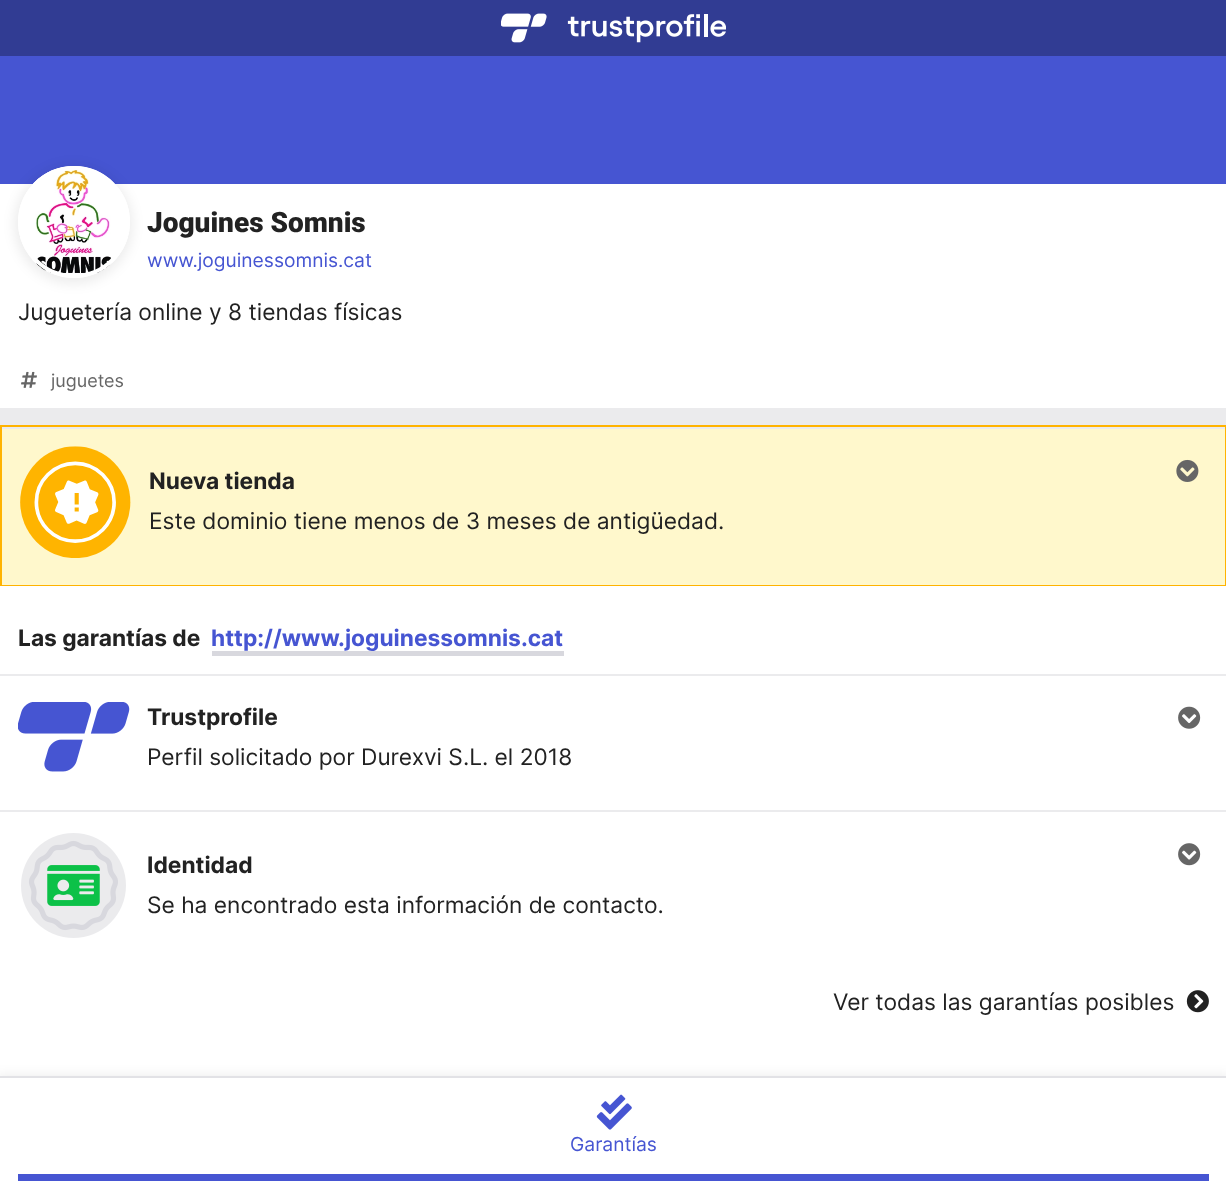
<svg xmlns="http://www.w3.org/2000/svg" width="1226" height="1181">
<style>
.a{font:900 28px Roboto;fill:#222}
.b{font:19.25px Inter;fill:#4655d2}
.c{font:22.75px Inter;fill:#222}
.d{font:18px Inter;fill:#666}
.e{font:bold 22.75px Inter;fill:#222}
.f{font:bold 22.75px Inter;fill:#4655d2}
</style>
<rect width="100%" height="100%" fill="#ebebed"/>
<path fill="#313c93" d="M0 0h1226v56H0z"/>
<image href="1.png" x="501" y="13" width="225" height="30"/>
<path fill="#4655d2" d="M0 56h1226v128H0z"/>
<path fill="#fff" d="M0 184h1226v224H0z"/>
<rect fill="#00000012" filter="blur(6px)" x="14" y="165" width="119" height="119" rx="59.5"/>
<circle fill="#fff" cx="74" cy="222" r="56"/>
<image href="2.png" x="32" y="166" width="79" height="108"/>
<circle fill="none" stroke="#fff" stroke-width="4" cx="74" cy="222" r="54"/>
<image href="3.png" x="21" y="371" width="16" height="17"/>
<path fill="#fff" d="M0 586h1226v490H0z"/>
<path fill="none" stroke="#ffb300" stroke-width="2" d="M1 426h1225v159H1z"/>
<path fill="#fff8cc" d="M2 429h1223v156H2z"/>
<image href="4.png" x="20" y="446" width="111" height="112"/>
<image href="5.png" x="1176" y="459" width="23" height="23"/>
<path fill="#d8d8de" d="M212 651h352v5H212z"/>
<path fill="#ebebed" d="M0 674h1226v2H0z"/>
<image href="6.png" x="18" y="702" width="112" height="70"/>
<image href="7.png" x="1178" y="706" width="23" height="23"/>
<path fill="#ebebed" d="M0 810h1226v2H0z"/>
<image href="8.png" x="21" y="833" width="105" height="105"/>
<image href="9.png" x="1178" y="843" width="23" height="23"/>
<image href="10.png" x="1186" y="990" width="23" height="23"/>
<path fill="#00000012" filter="blur(6px)" d="M-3 1075h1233v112H-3z"/>
<path fill="#fff" d="M0 1078h1226v103H0z"/>
<path fill="#e2e2e6" d="M0 1076h1226v2H0z"/>
<path fill="#4655d2" d="M18 1174h1191v7H18z"/>
<image href="11.png" x="596" y="1094" width="36" height="36"/>
<text class="a" x="147" y="232">Joguines Somnis</text>
<text class="b" x="147" y="267">www.joguinessomnis.cat</text>
<text class="c" x="18" y="320">Juguetería online y 8 tiendas físicas</text>
<text class="d" x="51" y="387">juguetes</text>
<text class="e" x="149" y="489">Nueva tienda</text>
<text class="c" x="149" y="529">Este dominio tiene menos de 3 meses de antigüedad.</text>
<text class="e" x="18" y="646">Las garantías de</text>
<text class="f" x="211" y="646">http://www.joguinessomnis.cat</text>
<text class="e" x="147" y="725">Trustprofile</text>
<text class="c" x="147" y="765">Perfil solicitado por Durexvi S.L. el 2018</text>
<text class="e" x="147" y="873">Identidad</text>
<text class="c" x="147" y="913">Se ha encontrado esta información de contacto.</text>
<text class="c" x="833" y="1010">Ver todas las garantías posibles</text>
<text class="b" x="570" y="1151">Garantías</text>
</svg>
